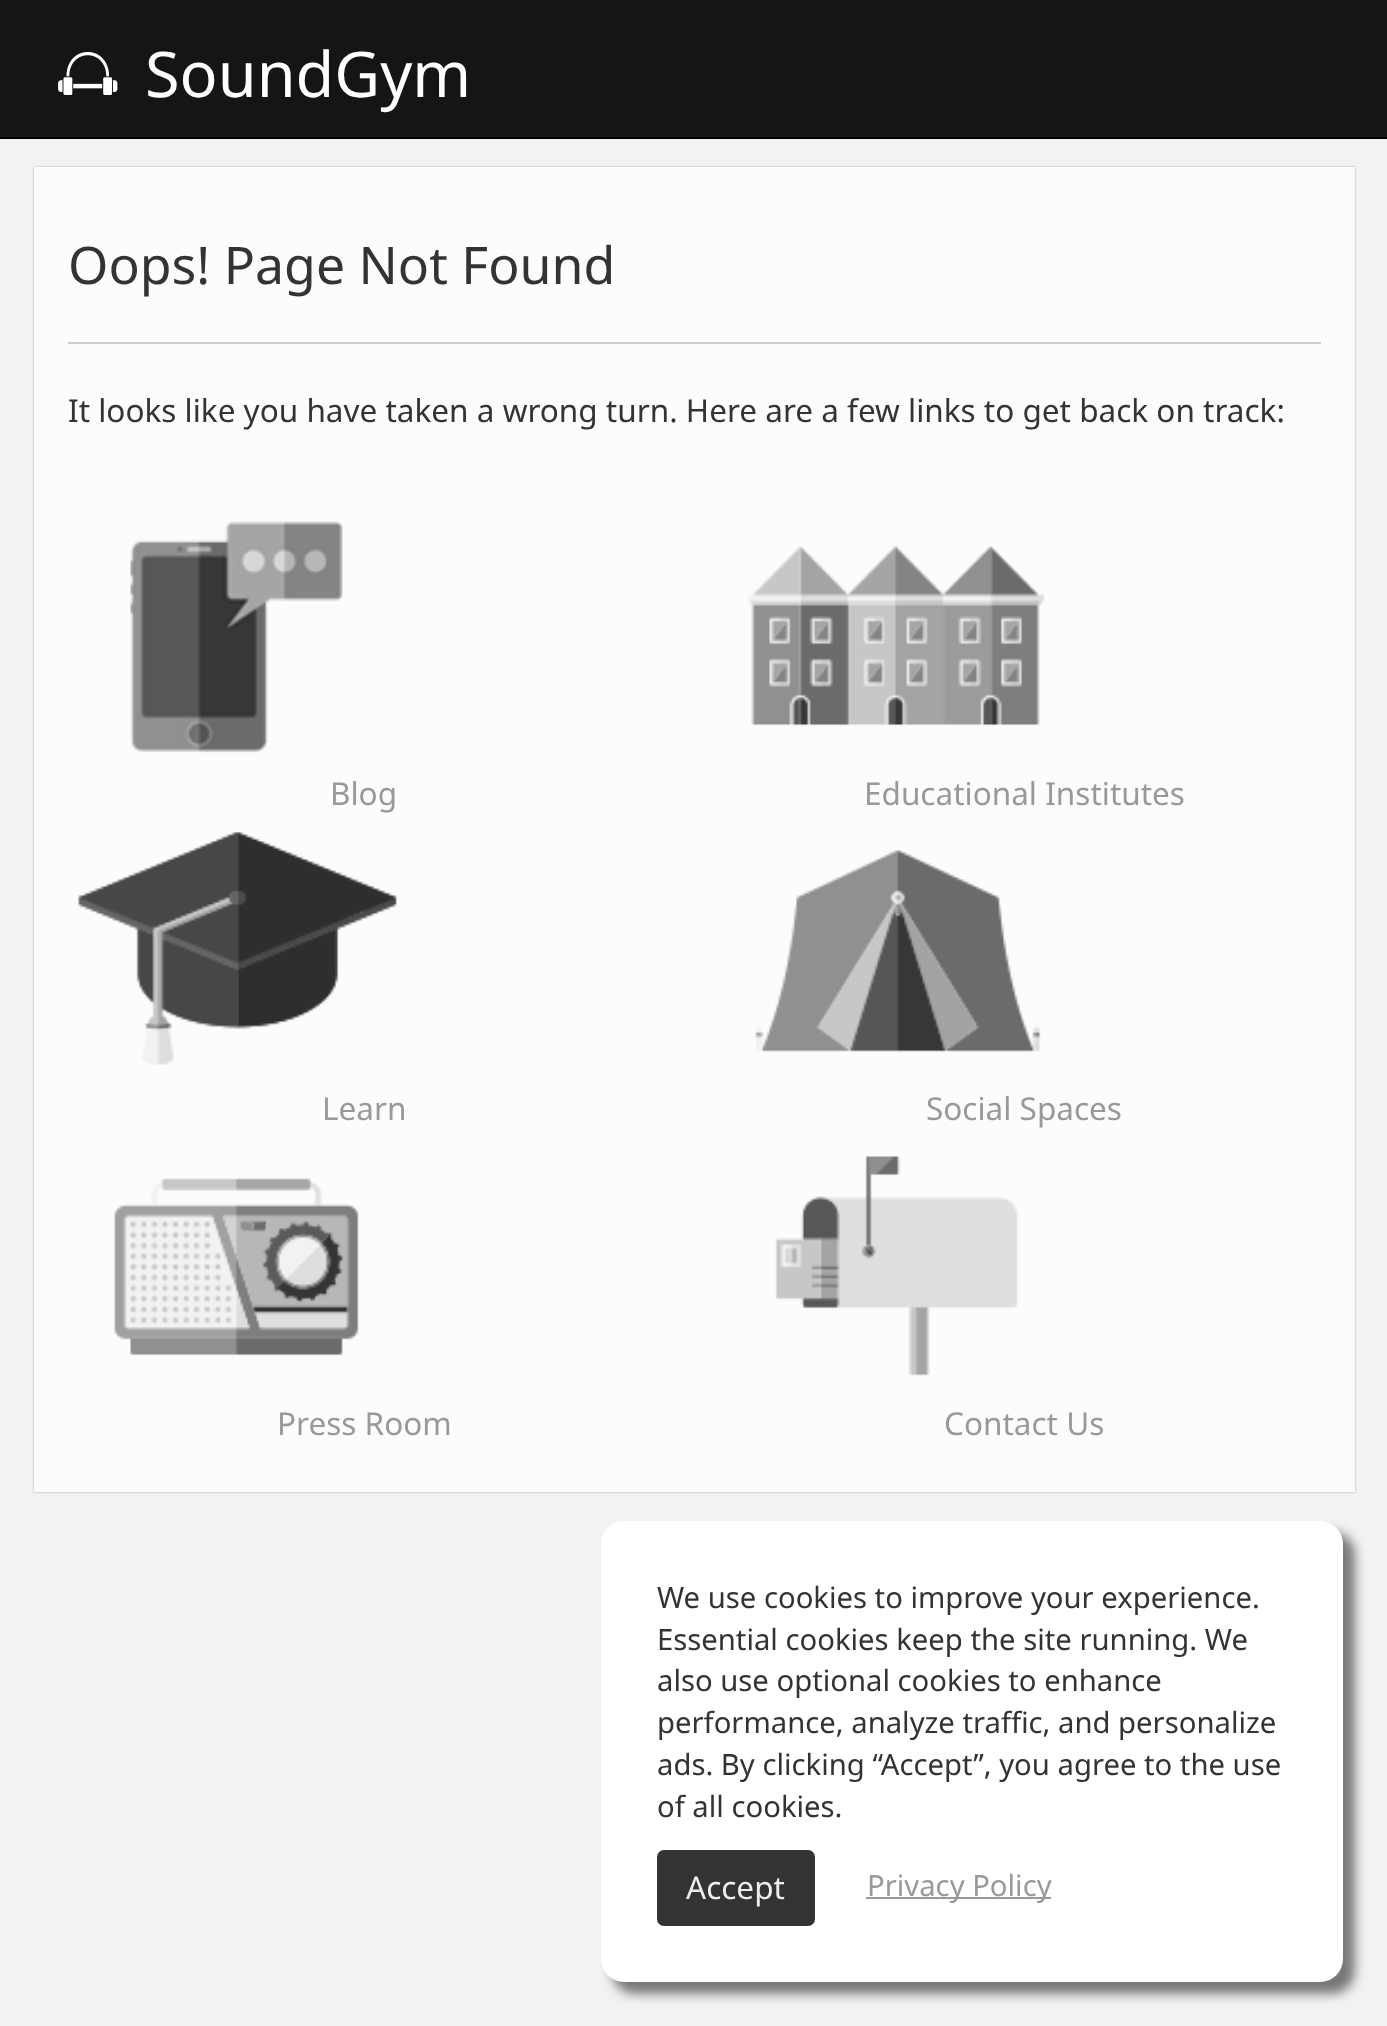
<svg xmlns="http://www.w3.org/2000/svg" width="1387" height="2026">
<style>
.a{font:63px Noto Sans;fill:#fff}
.b{font:51.75px Noto Sans;fill:#333}
.c{font:31.5px Noto Sans;fill:#333}
.d{font:31.5px Noto Sans;fill:#999}
.e{font:29.25px Noto Sans;fill:#333}
.f{font:31.5px Noto Sans;fill:#eee}
.g{font:29.25px Noto Sans;fill:#999}
</style>
<rect width="100%" height="100%" fill="#f2f2f2"/>
<path fill="#151515" d="M0 0h1387v137H0z"/>
<path fill="#000" d="M0 137h1387v2H0z"/>
<image href="1.png" x="58" y="52" width="60" height="43"/>
<path fill="#aaa" filter="blur(1px)" d="M34 167h1321v1325H34z"/>
<path fill="#fcfcfc" d="M34 167h1321v1325H34z"/>
<path fill="#ccc" d="M68 342h1253v2H68z"/>
<image href="2.png" x="130" y="521" width="213" height="232"/>
<image href="3.png" x="747" y="546" width="298" height="180"/>
<image href="4.png" x="78" y="832" width="319" height="233"/>
<image href="5.png" x="755" y="850" width="286" height="202"/>
<image href="6.png" x="114" y="1178" width="245" height="178"/>
<image href="7.png" x="775" y="1156" width="243" height="220"/>
<rect fill="#00000080" filter="blur(5.5px)" x="612" y="1532" width="743" height="462" rx="23"/>
<rect fill="#fff" x="601" y="1521" width="742" height="461" rx="23"/>
<rect fill="#333" x="657" y="1850" width="158" height="76" rx="7"/>
<path fill="#999" d="M866 1897h185v2H866z"/>
<text class="a" x="145" y="97">SoundGym</text>
<text class="b" x="68" y="284">Oops! Page Not Found</text>
<text class="c" x="68" y="422">It looks like you have taken a wrong turn. Here are a few links to get back on track:</text>
<text class="d" x="330" y="805">Blog</text>
<text class="d" x="864" y="805">Educational Institutes</text>
<text class="d" x="322" y="1120">Learn</text>
<text class="d" x="926" y="1120">Social Spaces</text>
<text class="d" x="277" y="1435">Press Room</text>
<text class="d" x="944" y="1435">Contact Us</text>
<text class="e" x="657" y="1608">We use cookies to improve your experience.</text>
<text class="e" x="657" y="1650">Essential cookies keep the site running. We</text>
<text class="e" x="657" y="1691">also use optional cookies to enhance</text>
<text class="e" x="657" y="1733">performance, analyze traffic, and personalize</text>
<text class="e" x="657" y="1775">ads. By clicking “Accept”, you agree to the use</text>
<text class="e" x="657" y="1817">of all cookies.</text>
<text class="f" x="686" y="1899">Accept</text>
<text class="g" x="867" y="1896">Privacy Policy</text>
</svg>
